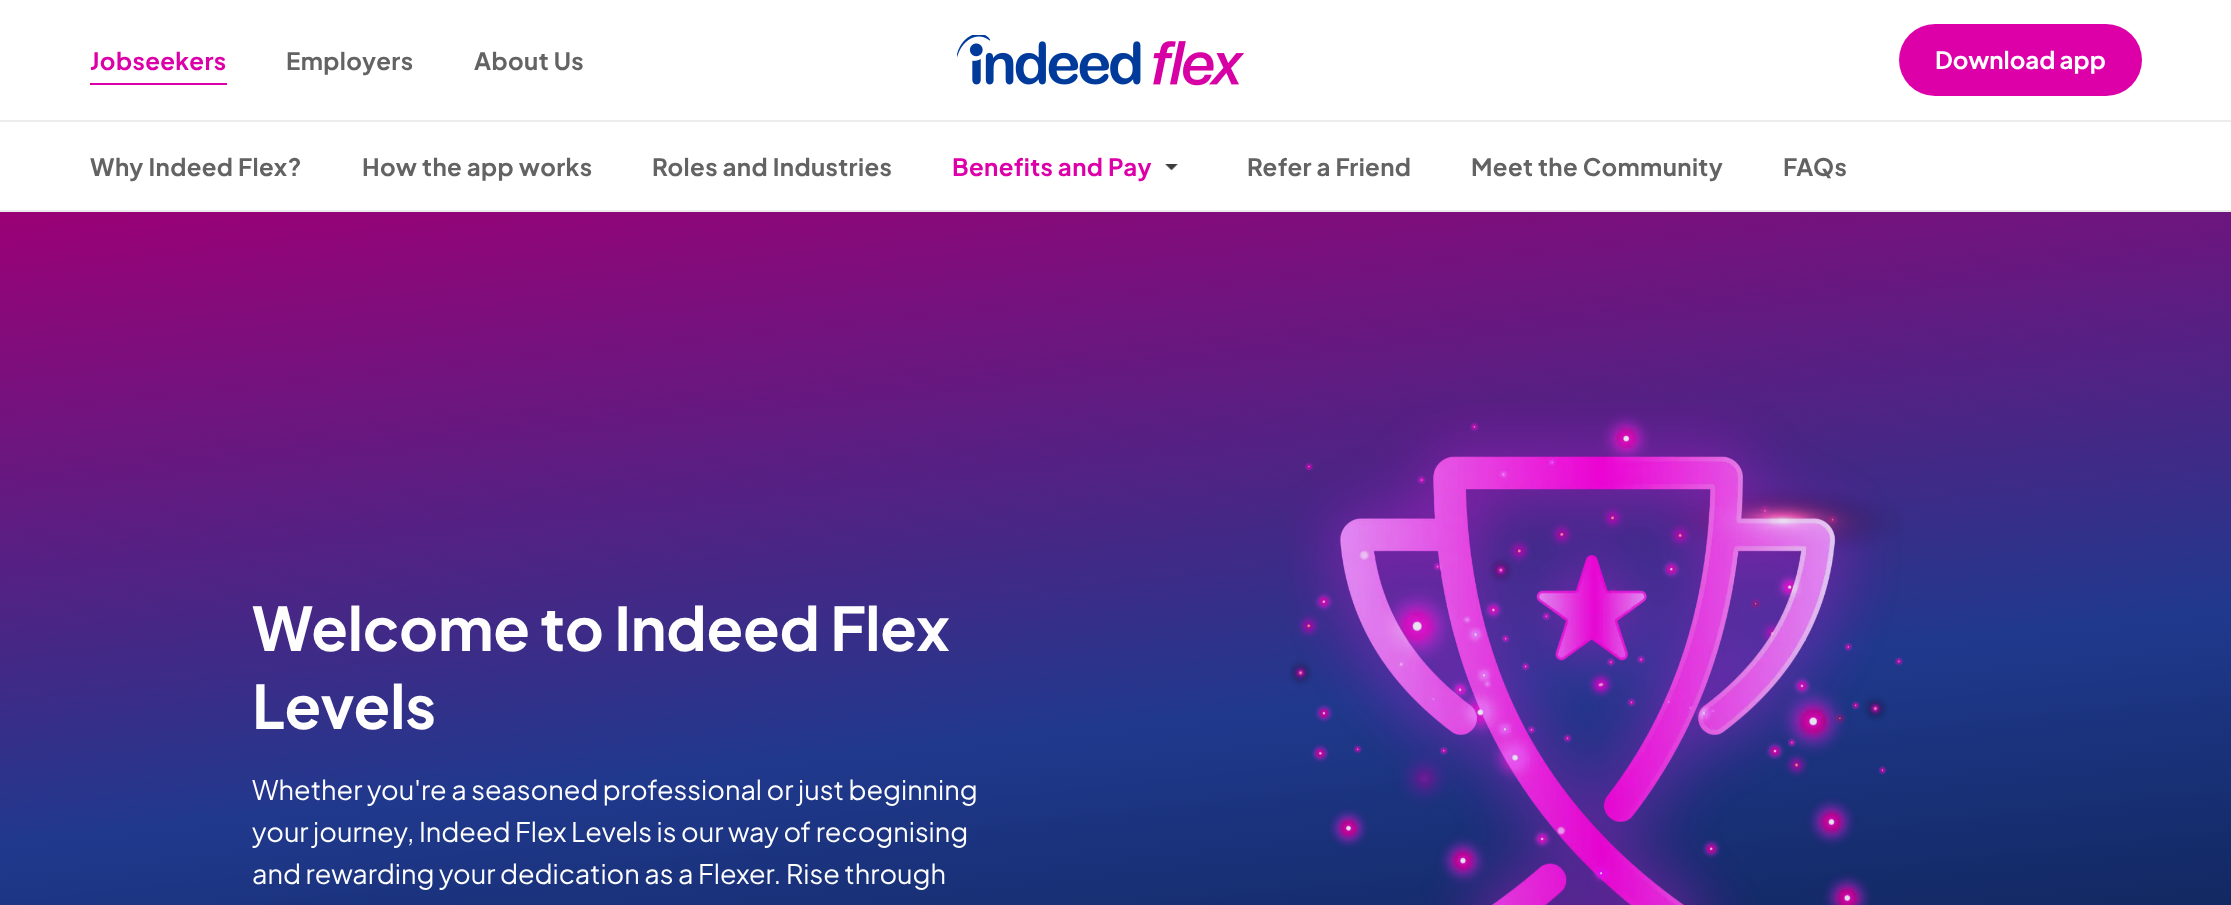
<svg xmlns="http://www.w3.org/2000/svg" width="2231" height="905">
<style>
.a{font:bold 24px Plus Jakarta Sans;letter-spacing:0.4px;fill:#dd00a9}
.b{font:bold 24px Plus Jakarta Sans;letter-spacing:0.4px;fill:#636363}
.c{font:bold 24px Plus Jakarta Sans;fill:#fefeff}
.d{font:bold 60px Plus Jakarta Sans;letter-spacing:-0.15px;fill:#fefeff}
.e{font:27px Plus Jakarta Sans;fill:#fefeff}
</style>
<defs>
<linearGradient id="g1" gradientUnits="userSpaceOnUse" x1="1049" y1="101" x2="1183" y2="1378"><stop offset="0" stop-color="#9b0076"/><stop offset="0.49" stop-color="#20398d"/><stop offset="1" stop-color="#00142d"/></linearGradient>
</defs>
<rect width="100%" height="100%" fill="#fff"/>
<path fill="#ececec" d="M0 210h2231v2H0z"/>
<path fill="#ececec" d="M0 120h2231v2H0z"/>
<path fill="#dd00a9" d="M90 83h137v2H90z"/>
<image href="1.png" x="957" y="35" width="288" height="51"/>
<rect fill="#dd00a9" x="1899" y="24" width="243" height="72" rx="36"/>
<image href="2.png" x="1165" y="164" width="13" height="7"/>
<path fill="url(#g1)" d="M0 212h2231v693H0z"/>
<image href="3.png" x="1289" y="404" width="615" height="501"/>
<text class="a" x="90" y="70">Jobseekers</text>
<text class="b" x="286" y="70">Employers</text>
<text class="b" x="474" y="70">About Us</text>
<text class="c" x="1935" y="69">Download app</text>
<text class="b" x="90" y="176">Why Indeed Flex?</text>
<text class="b" x="362" y="176">How the app works</text>
<text class="b" x="652" y="176">Roles and Industries</text>
<text class="a" x="952" y="176">Benefits and Pay</text>
<text class="b" x="1247" y="176">Refer a Friend</text>
<text class="b" x="1471" y="176">Meet the Community</text>
<text class="b" x="1783" y="176">FAQs</text>
<text class="d" x="252" y="651">Welcome to Indeed Flex</text>
<text class="d" x="252" y="729">Levels</text>
<text class="e" x="252" y="800">Whether you're a seasoned professional or just beginning</text>
<text class="e" x="252" y="842">your journey, Indeed Flex Levels is our way of recognising</text>
<text class="e" x="252" y="884">and rewarding your dedication as a Flexer. Rise through</text>
</svg>
